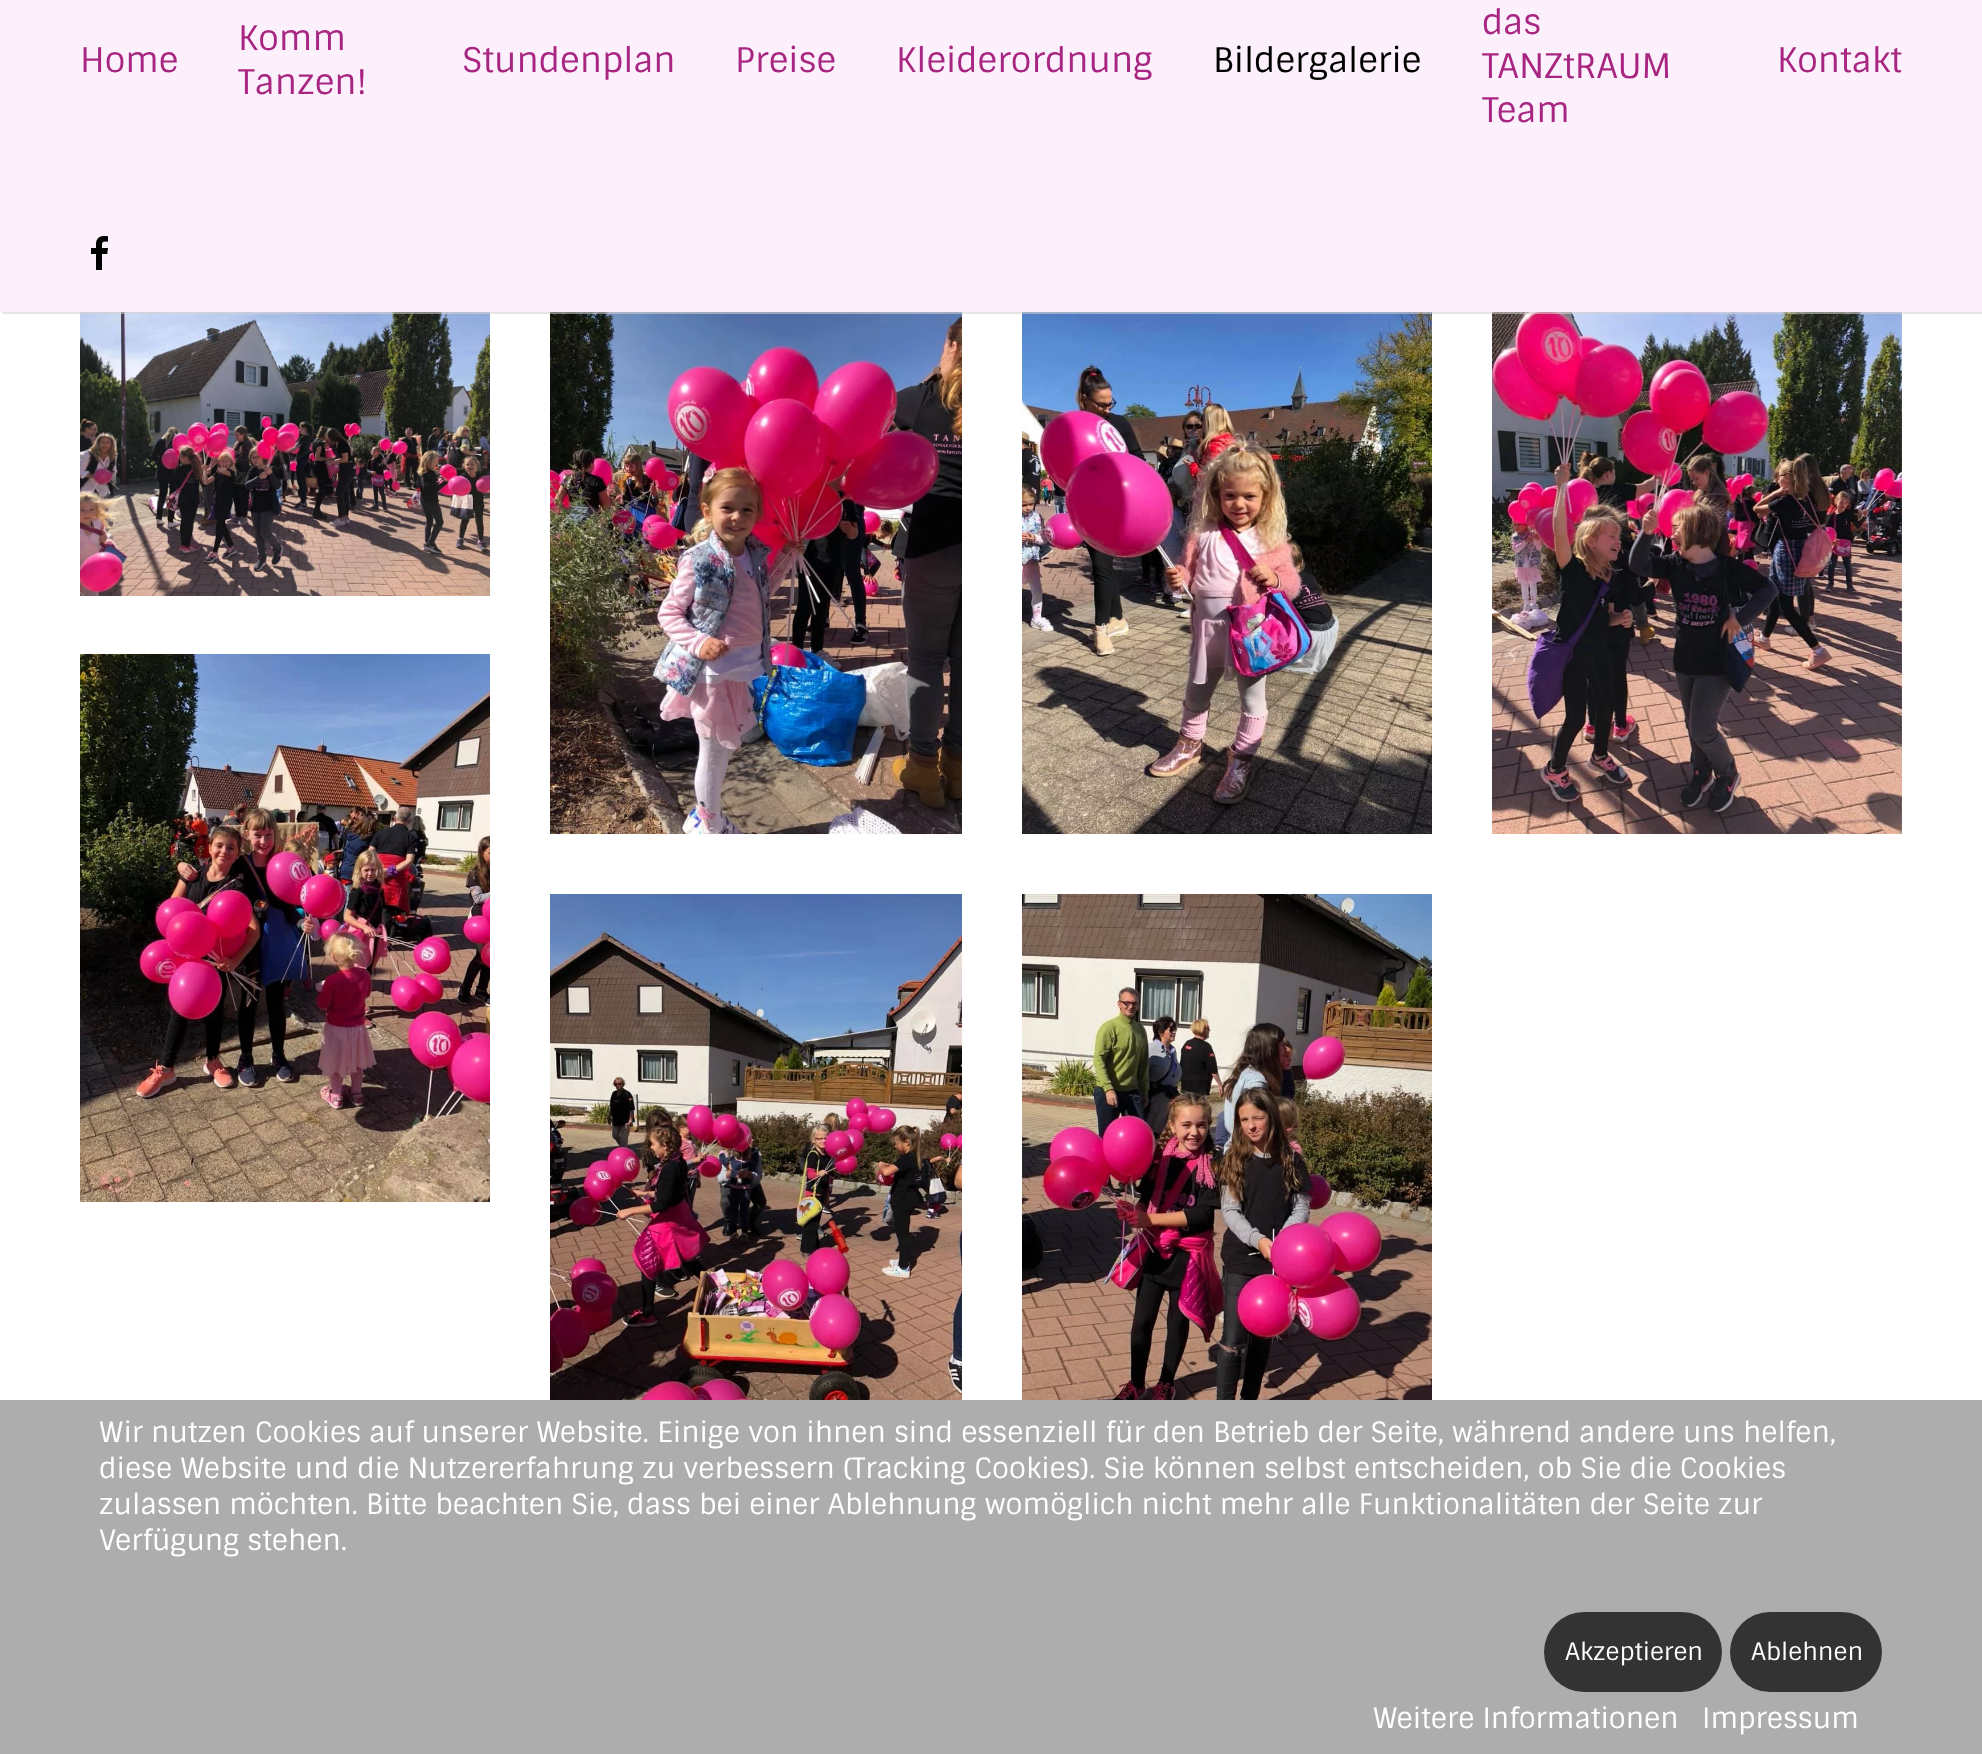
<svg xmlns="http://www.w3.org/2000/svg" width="1982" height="1754">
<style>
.a{font:34px Sintony;fill:#a82682}
.b{font:34px Sintony;fill:#000}
.c{font:28px Sintony;fill:#fff}
.d{font:24px Sintony;fill:#fff}
</style>
<rect width="100%" height="100%" fill="#fff"/>
<image href="2.png" x="80" y="312" width="410" height="284"/>
<image href="3.png" x="550" y="312" width="412" height="522"/>
<image href="4.png" x="1022" y="312" width="410" height="522"/>
<image href="5.png" x="1492" y="312" width="410" height="522"/>
<path fill="#d7d2d294" d="M2 312v2h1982v-312h-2v310z"/>
<path fill="#fbf0fb" d="M0 0h1982v312H0z"/>
<image href="1.png" x="91" y="236" width="17" height="34"/>
<image href="6.png" x="80" y="654" width="410" height="548"/>
<image href="7.png" x="550" y="894" width="412" height="506"/>
<image href="8.png" x="1022" y="894" width="410" height="506"/>
<path fill="#adadad" d="M0 1400h1982v354H0z"/>
<rect fill="#333" x="1544" y="1612" width="178" height="80" rx="40"/>
<rect fill="#333" x="1730" y="1612" width="152" height="80" rx="40"/>
<text class="a" x="80" y="72">Home</text>
<text class="a" x="238" y="50">Komm</text>
<text class="a" x="238" y="94">Tanzen!</text>
<text class="a" x="462" y="72">Stundenplan</text>
<text class="a" x="735" y="72">Preise</text>
<text class="a" x="896" y="72">Kleiderordnung</text>
<text class="b" x="1213" y="72">Bildergalerie</text>
<text class="a" x="1482" y="34">das</text>
<text class="a" x="1482" y="78">TANZtRAUM</text>
<text class="a" x="1482" y="122">Team</text>
<text class="a" x="1777" y="72">Kontakt</text>
<text class="c" x="99" y="1442">Wir nutzen Cookies auf unserer Website. Einige von ihnen sind essenziell für den Betrieb der Seite, während andere uns helfen,</text>
<text class="c" x="99" y="1478">diese Website und die Nutzererfahrung zu verbessern (Tracking Cookies). Sie können selbst entscheiden, ob Sie die Cookies</text>
<text class="c" x="99" y="1514">zulassen möchten. Bitte beachten Sie, dass bei einer Ablehnung womöglich nicht mehr alle Funktionalitäten der Seite zur</text>
<text class="c" x="99" y="1550">Verfügung stehen.</text>
<text class="d" x="1565" y="1660">Akzeptieren</text>
<text class="d" x="1751" y="1660">Ablehnen</text>
<text class="c" x="1373" y="1728">Weitere Informationen</text>
<text class="c" x="1702" y="1728">Impressum</text>
</svg>
